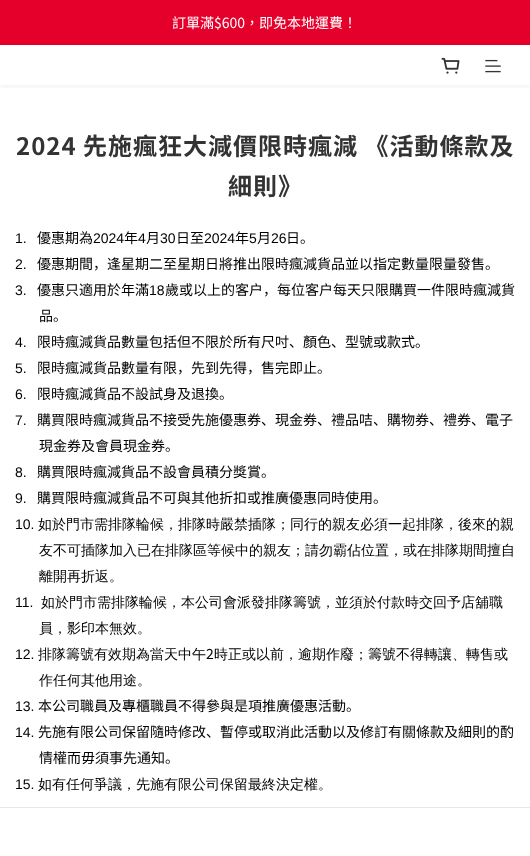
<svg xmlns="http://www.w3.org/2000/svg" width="530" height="856">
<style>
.a{font:14px Noto Sans TC;fill:#fff}
.b{font:bold 24px Noto Sans TC;letter-spacing:1px;fill:#333}
.c{font:14px Liberation Sans;fill:#000}
.d{font:14px Noto Sans CJK SC;fill:#000}
.e{font:500 14px WenQuanYi Zen Hei;fill:#000}
.f{font:14px Noto Sans TC;fill:#000}
</style>
<defs>
<clipPath id="clip1"><path d="M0 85h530v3H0z"/></clipPath>
</defs>
<rect width="100%" height="100%" fill="#fff"/>
<path fill="#e4002b" d="M0 0h530v45H0z"/>
<g clip-path="url(#clip1)">
<path fill="#0000000f" filter="blur(3px)" d="M0 47h530v40H0z"/>
</g>
<image href="1.png" x="441" y="57" width="19" height="17"/>
<image href="2.png" x="485" y="59" width="16" height="14"/>
<path fill="#e6e6e6" d="M0 807h530v1H0z"/>
<text class="a" x="172" y="28">訂單滿$600，即免本地運費！</text>
<text class="b" x="16" y="155">2024 先施瘋狂大減價限時瘋減 《活動條款及</text>
<text class="b" x="228" y="195">細則》</text>
<text class="c" x="15" y="243">1.</text>
<text class="d" x="37" y="243">優惠期為</text>
<text class="c" x="93" y="243">2024</text>
<text class="d" x="124" y="243">年</text>
<text class="c" x="138" y="243">4</text>
<text class="d" x="146" y="243">月</text>
<text class="c" x="160" y="243">30</text>
<text class="d" x="176" y="243">日至</text>
<text class="c" x="204" y="243">2024</text>
<text class="d" x="235" y="243">年</text>
<text class="c" x="249" y="243">5</text>
<text class="d" x="257" y="243">月</text>
<text class="c" x="271" y="243">26</text>
<text class="d" x="286" y="243">日。</text>
<text class="c" x="15" y="269">2.</text>
<text class="d" x="37" y="269">優惠期間，逢星期二至星期日將推出限時瘋減貨品並以指定數量限量發售。</text>
<text class="c" x="15" y="295">3.</text>
<text class="d" x="37" y="295">優惠只適用於年滿</text>
<text class="c" x="149" y="295">18</text>
<text class="d" x="165" y="295">歲或以上的客户，每位客户每天只限購買一件限時瘋減貨</text>
<text class="d" x="39" y="321">品。</text>
<text class="c" x="15" y="347">4.</text>
<text class="d" x="37" y="347">限時瘋減貨品數量包括但不限於所有尺吋、顏色、型號或款式。</text>
<text class="c" x="15" y="373">5.</text>
<text class="d" x="37" y="373">限時瘋減貨品數量有限，先到先得，售完即止。</text>
<text class="c" x="15" y="399">6.</text>
<text class="d" x="37" y="399">限時瘋減貨品不設試身及退換。</text>
<text class="c" x="15" y="425">7.</text>
<text class="d" x="37" y="425">購買限時瘋減貨品不接受先施優惠券、現金券、禮品咭、購物券、禮券、電子</text>
<text class="d" x="39" y="451">現金券及會員現金券。</text>
<text class="c" x="15" y="477">8.</text>
<text class="d" x="37" y="477">購買限時瘋減貨品不設會員積分獎賞。</text>
<text class="c" x="15" y="503">9.</text>
<text class="d" x="37" y="503">購買限時瘋減貨品不可與其他折扣或推廣優惠同時使用。</text>
<text class="c" x="15" y="529">10.</text>
<text class="e" x="38" y="529">如於門市需排隊輪候，排隊時嚴禁插隊；同行的親友必須一起排隊，後來的親</text>
<text class="e" x="39" y="555">友不可插隊加入已在排隊區等候中的親友；請勿霸佔位置，或在排隊期間擅自</text>
<text class="e" x="39" y="581">離開再折返。</text>
<text class="c" x="15" y="607">11.</text>
<text class="e" x="41" y="607">如於門市需排隊輪候，本公司會派發排隊籌號，並須於付款時交回予店舖職</text>
<text class="e" x="39" y="633">員，影印本無效。</text>
<text class="c" x="15" y="659">12.</text>
<text class="e" x="38" y="659">排隊籌號有效期為當天中午</text>
<text class="f" x="206" y="659">2</text>
<text class="e" x="214" y="659">時正或以前，逾期作廢；籌號不得轉讓、轉售或</text>
<text class="e" x="39" y="685">作任何其他用途。</text>
<text class="c" x="15" y="711">13.</text>
<text class="d" x="38" y="711">本公司職員及專櫃職員不得參與是項推廣優惠活動。</text>
<text class="c" x="15" y="737">14.</text>
<text class="d" x="38" y="737">先施有限公司保留隨時修改、暫停或取消此活動以及修訂有關條款及細則的酌</text>
<text class="d" x="39" y="763">情權而毋須事先通知。</text>
<text class="c" x="15" y="789">15.</text>
<text class="e" x="38" y="789">如有任何爭議，先施有限公司保留最終決定權。</text>
</svg>
